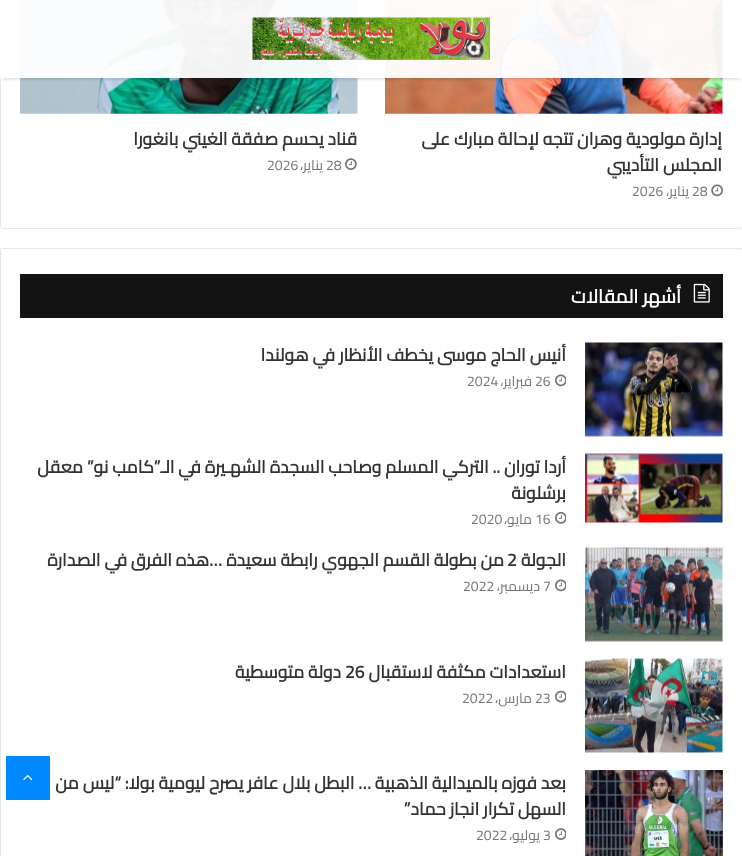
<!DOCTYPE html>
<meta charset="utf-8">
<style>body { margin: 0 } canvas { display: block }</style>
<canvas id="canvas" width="742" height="856"></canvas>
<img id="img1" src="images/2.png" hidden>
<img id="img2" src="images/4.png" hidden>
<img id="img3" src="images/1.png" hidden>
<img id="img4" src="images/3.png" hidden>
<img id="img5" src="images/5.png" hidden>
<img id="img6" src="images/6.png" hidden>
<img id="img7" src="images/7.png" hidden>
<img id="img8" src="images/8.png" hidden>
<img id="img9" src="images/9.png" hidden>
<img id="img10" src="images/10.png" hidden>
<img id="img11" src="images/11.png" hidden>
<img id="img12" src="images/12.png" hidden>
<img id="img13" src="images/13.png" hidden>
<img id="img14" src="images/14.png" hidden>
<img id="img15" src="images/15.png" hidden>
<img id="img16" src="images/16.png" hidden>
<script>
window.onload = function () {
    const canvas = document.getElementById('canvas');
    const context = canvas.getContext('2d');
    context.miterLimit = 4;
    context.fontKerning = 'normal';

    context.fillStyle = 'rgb(255, 255, 255)';
    context.fillRect(0, 0, 742, 856);
    context.beginPath();
    context.roundRect(0.5, -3.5, 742, 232, 2);
    context.strokeStyle = 'rgb(230, 230, 230)';
    context.stroke();
    context.drawImage(document.getElementById('img1'), 385, 0, 338, 114);
    context.drawImage(document.getElementById('img2'), 20, 0, 338, 114);
    context.save();
    context.beginPath();
    context.moveTo(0, 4);
    context.lineTo(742, 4);
    context.lineTo(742, 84);
    context.lineTo(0, 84);
    context.closePath();
    context.moveTo(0, 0);
    context.lineTo(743, 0);
    context.lineTo(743, 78);
    context.lineTo(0, 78);
    context.closePath();
    context.clip('evenodd');
    context.fillStyle = 'rgba(0, 0, 0, 0.1)';
    context.filter = 'blur(1px)';
    context.beginPath();
    context.rect(3, 8, 737, 72);
    context.fill();
    context.filter = 'none';
    context.restore();
    context.fillStyle = 'rgba(255, 255, 255, 0.95)';
    context.fillRect(0, 0, 741, 78);
    context.drawImage(document.getElementById('img3'), 252, 17, 238, 43);
    context.drawImage(document.getElementById('img4'), 711, 184, 12, 13);
    context.drawImage(document.getElementById('img5'), 345, 158, 12, 12);
    context.beginPath();
    context.roundRect(0.5, 248.5, 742, 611, 2);
    context.stroke();
    context.fillStyle = 'rgb(19, 19, 19)';
    context.fillRect(20, 274, 703, 44);
    context.drawImage(document.getElementById('img6'), 693, 283, 17, 20);
    context.drawImage(document.getElementById('img7'), 585, 342, 138, 95);
    context.drawImage(document.getElementById('img8'), 555, 374, 11, 13);
    context.drawImage(document.getElementById('img9'), 585, 453, 138, 70);
    context.drawImage(document.getElementById('img10'), 555, 512, 11, 12);
    context.drawImage(document.getElementById('img11'), 585, 547, 138, 95);
    context.drawImage(document.getElementById('img8'), 555, 579, 11, 13);
    context.drawImage(document.getElementById('img12'), 585, 658, 138, 95);
    context.drawImage(document.getElementById('img13'), 555, 690, 11, 13);
    context.drawImage(document.getElementById('img14'), 585, 770, 138, 86);
    context.drawImage(document.getElementById('img15'), 555, 828, 11, 12);
    context.fillStyle = 'rgb(0, 136, 255)';
    context.fillRect(6, 756, 44, 44);
    context.drawImage(document.getElementById('img16'), 23, 774, 10, 7);
    context.direction = 'rtl';
    context.font = 'bold 17.5px Cairo';
    context.fillStyle = 'rgb(51, 51, 51)';
    context.fillText('إدارة مولودية وهران تتجه لإحالة مبارك على', 722, 145);
    context.fillText('المجلس التأديبي', 722, 171);
    context.direction = 'ltr';
    context.font = '14px Cairo';
    context.fillStyle = 'rgb(118, 118, 118)';
    context.fillText('28', 692, 196);
    context.direction = 'rtl';
    context.fillText('يناير،', 689, 196);
    context.direction = 'ltr';
    context.fillText('2026', 632, 196);
    context.direction = 'rtl';
    context.font = 'bold 17.5px Cairo';
    context.fillStyle = 'rgb(51, 51, 51)';
    context.fillText('قناد يحسم صفقة الغيني بانغورا', 357, 145);
    context.direction = 'ltr';
    context.font = '14px Cairo';
    context.fillStyle = 'rgb(118, 118, 118)';
    context.fillText('28', 326, 170);
    context.direction = 'rtl';
    context.fillText('يناير،', 323, 170);
    context.direction = 'ltr';
    context.fillText('2026', 267, 170);
    context.direction = 'rtl';
    context.font = 'bold 18.75px Cairo';
    context.fillStyle = 'rgb(255, 255, 255)';
    context.fillText('أشهر المقالات', 681, 303);
    context.font = 'bold 17.5px Cairo';
    context.fillStyle = 'rgb(51, 51, 51)';
    context.fillText('أنيس الحاج موسى يخطف الأنظار في هولندا', 566, 361);
    context.direction = 'ltr';
    context.font = '14px Cairo';
    context.fillStyle = 'rgb(118, 118, 118)';
    context.fillText('26', 535, 386);
    context.direction = 'rtl';
    context.fillText('فبراير،', 532, 386);
    context.direction = 'ltr';
    context.fillText('2024', 467, 386);
    context.direction = 'rtl';
    context.font = 'bold 17.5px Cairo';
    context.fillStyle = 'rgb(51, 51, 51)';
    context.fillText('أردا توران .. التركي المسلم وصاحب السجدة الشهـيرة في الـ”كامب نو” معقل', 566, 473);
    context.fillText('برشلونة', 566, 499);
    context.direction = 'ltr';
    context.font = '14px Cairo';
    context.fillStyle = 'rgb(118, 118, 118)';
    context.fillText('16', 535, 524);
    context.direction = 'rtl';
    context.fillText('مايو،', 532, 524);
    context.direction = 'ltr';
    context.fillText('2020', 471, 524);
    context.direction = 'rtl';
    context.font = 'bold 17.5px Cairo';
    context.fillStyle = 'rgb(51, 51, 51)';
    context.fillText('الجولة', 566, 566);
    context.direction = 'ltr';
    context.fillText('2', 507, 566);
    context.direction = 'rtl';
    context.fillText('من بطولة القسم الجهوي رابطة سعيدة', 504, 566);
    context.fillText('…هذه الفرق في الصدارة', 222, 566);
    context.direction = 'ltr';
    context.font = '14px Cairo';
    context.fillStyle = 'rgb(118, 118, 118)';
    context.fillText('7', 543, 591);
    context.direction = 'rtl';
    context.fillText('ديسمبر،', 540, 591);
    context.direction = 'ltr';
    context.fillText('2022', 463, 591);
    context.direction = 'rtl';
    context.font = 'bold 17.5px Cairo';
    context.fillStyle = 'rgb(51, 51, 51)';
    context.fillText('استعدادات مكثفة لاستقبال', 566, 678);
    context.direction = 'ltr';
    context.fillText('26', 345, 678);
    context.direction = 'rtl';
    context.fillText('دولة متوسطية', 341, 678);
    context.direction = 'ltr';
    context.font = '14px Cairo';
    context.fillStyle = 'rgb(118, 118, 118)';
    context.fillText('23', 535, 703);
    context.direction = 'rtl';
    context.fillText('مارس،', 532, 703);
    context.direction = 'ltr';
    context.fillText('2022', 462, 703);
    context.direction = 'rtl';
    context.font = 'bold 17.5px Cairo';
    context.fillStyle = 'rgb(51, 51, 51)';
    context.fillText('بعد فوزه بالميدالية الذهبية … البطل بلال عافر يصرح ليومية بولا:', 566, 789);
    context.fillText('“ليس من', 121, 789);
    context.fillText('السهل تكرار انجاز حماد”', 566, 815);
    context.direction = 'ltr';
    context.font = '14px Cairo';
    context.fillStyle = 'rgb(118, 118, 118)';
    context.fillText('3', 543, 840);
    context.direction = 'rtl';
    context.fillText('يوليو،', 540, 840);
    context.direction = 'ltr';
    context.fillText('2022', 476, 840);
};
</script>
